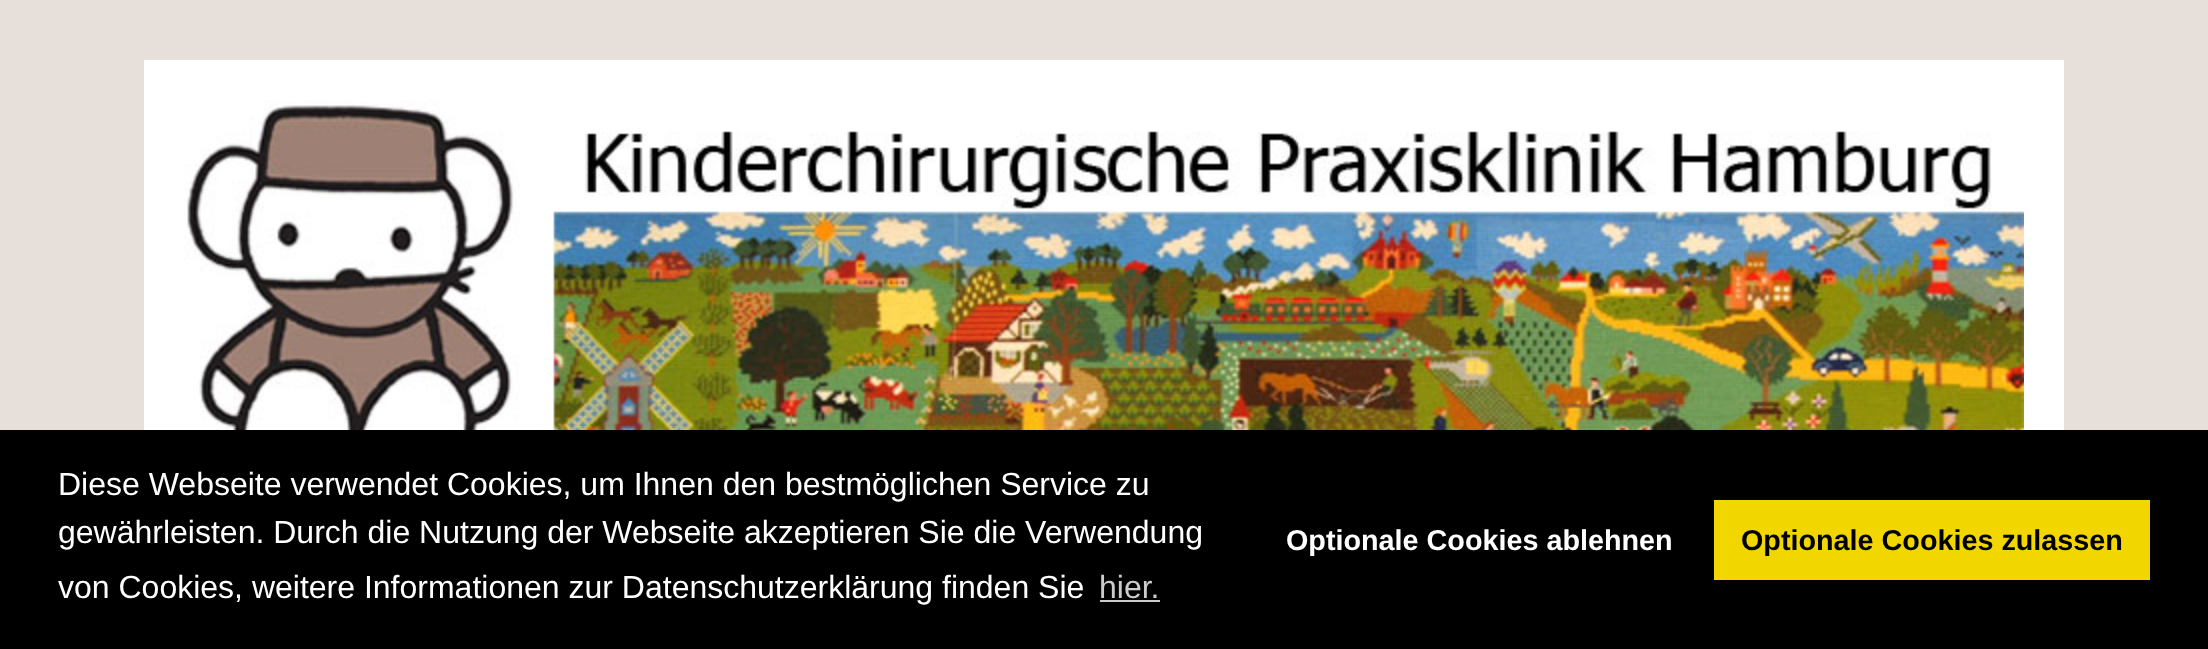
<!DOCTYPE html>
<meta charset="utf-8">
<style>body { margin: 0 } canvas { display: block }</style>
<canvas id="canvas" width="2208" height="649"></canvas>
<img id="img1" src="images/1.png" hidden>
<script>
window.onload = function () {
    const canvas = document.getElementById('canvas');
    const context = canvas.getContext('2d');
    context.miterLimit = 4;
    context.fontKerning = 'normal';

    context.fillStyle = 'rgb(231, 223, 218)';
    context.fillRect(0, 0, 2208, 649);
    context.fillStyle = 'rgb(255, 255, 255)';
    context.fillRect(144, 60, 1920, 370);
    context.drawImage(document.getElementById('img1'), 184, 100, 1840, 330);
    context.fillStyle = 'rgb(0, 0, 0)';
    context.fillRect(0, 430, 2208, 219);
    context.fillStyle = 'rgb(204, 204, 204)';
    context.fillRect(1100, 600, 60, 2);
    context.fillStyle = 'rgb(241, 214, 0)';
    context.fillRect(1714, 500, 436, 80);
    context.font = '32px Liberation Sans';
    context.fillStyle = 'rgb(255, 255, 255)';
    context.fillText('Diese Webseite verwendet Cookies, um Ihnen den bestmöglichen Service zu', 58, 495);
    context.fillText('gewährleisten. Durch die Nutzung der Webseite akzeptieren Sie die Verwendung', 58, 543);
    context.fillText('von Cookies, weitere Informationen zur Datenschutzerklärung finden Sie', 58, 598);
    context.fillStyle = 'rgb(204, 204, 204)';
    context.fillText('hier.', 1099, 598);
    context.font = 'bold 28.75px Liberation Sans';
    context.fillStyle = 'rgb(255, 255, 255)';
    context.fillText('Optionale Cookies ablehnen', 1286, 550);
    context.fillStyle = 'rgb(0, 0, 0)';
    context.fillText('Optionale Cookies zulassen', 1741, 550);
};
</script>
